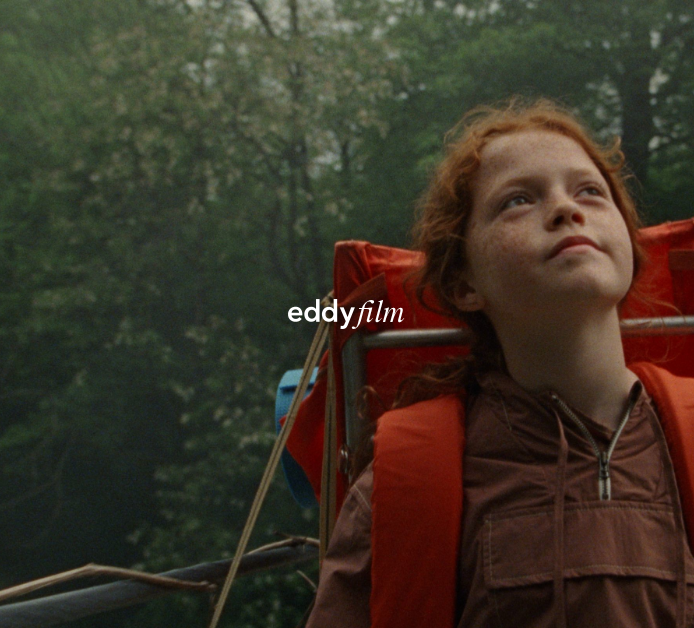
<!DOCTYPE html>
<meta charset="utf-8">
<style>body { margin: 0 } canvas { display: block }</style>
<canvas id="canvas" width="694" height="628"></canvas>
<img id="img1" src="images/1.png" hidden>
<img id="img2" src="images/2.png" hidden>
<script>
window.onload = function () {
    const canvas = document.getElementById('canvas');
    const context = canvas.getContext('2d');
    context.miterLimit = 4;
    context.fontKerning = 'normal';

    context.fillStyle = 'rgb(255, 255, 255)';
    context.fillRect(0, 0, 694, 628);
    context.drawImage(document.getElementById('img1'), 0, 0, 694, 628);
    context.font = 'italic 300 30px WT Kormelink';
    context.fillText('film', 357, 322);
    context.drawImage(document.getElementById('img2'), 288, 299, 67, 30);
};
</script>
